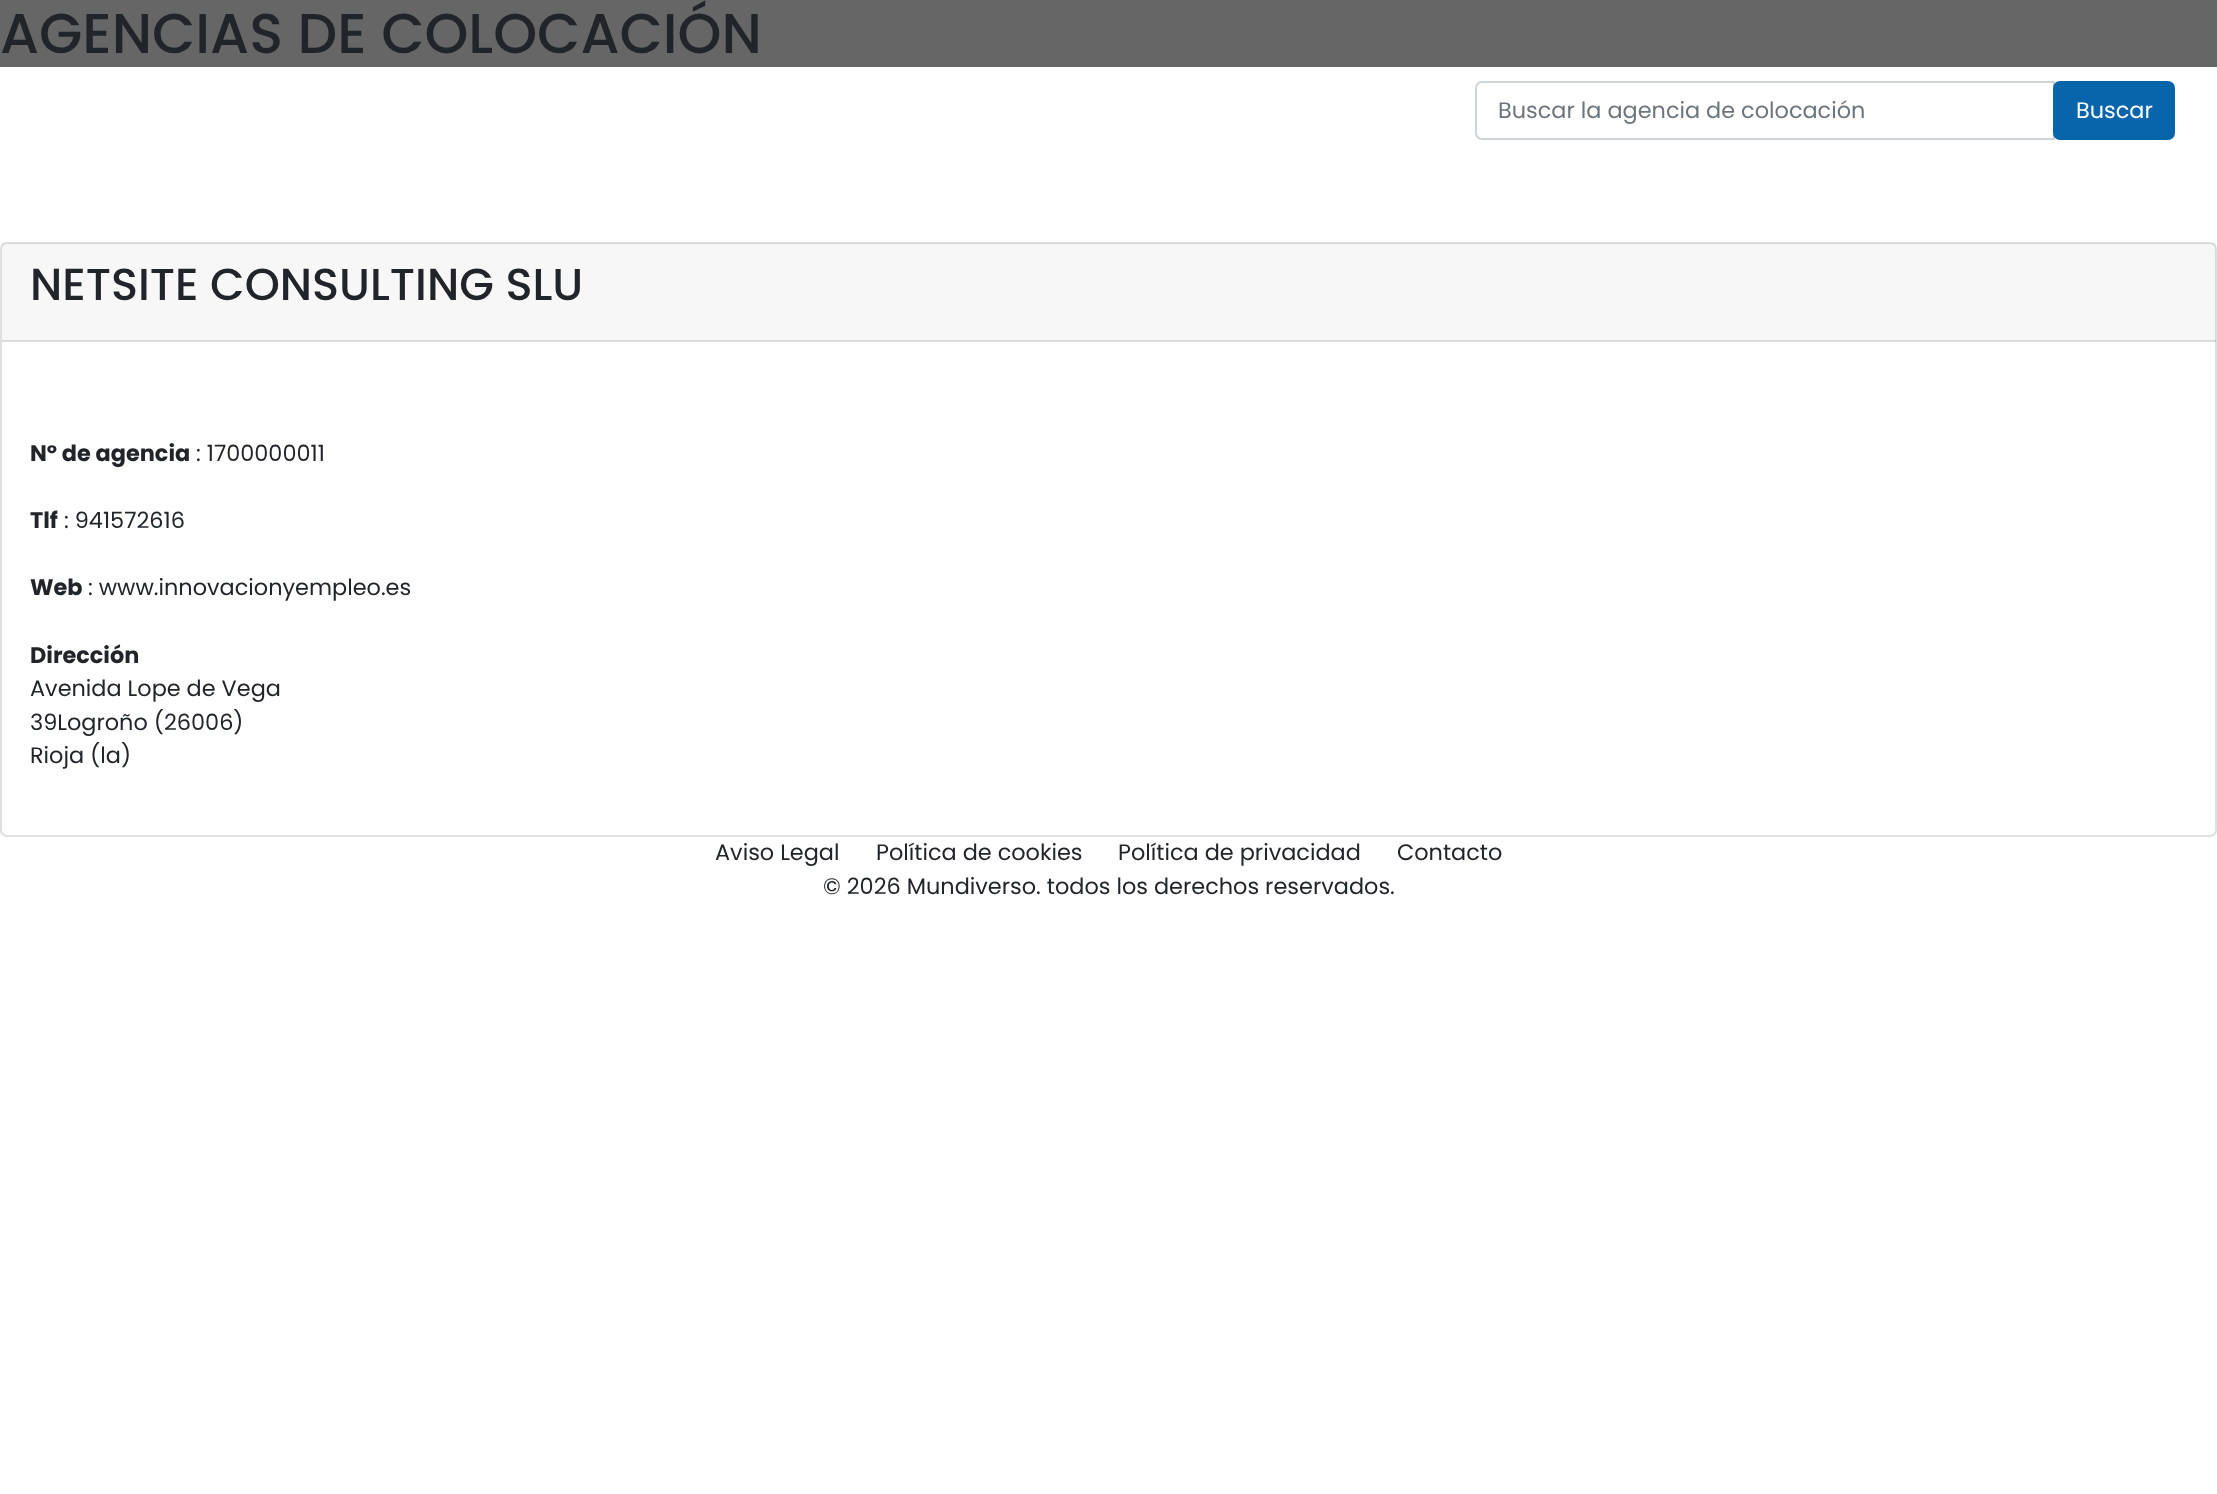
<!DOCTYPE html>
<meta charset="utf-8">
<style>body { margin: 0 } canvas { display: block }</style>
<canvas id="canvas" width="2217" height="1494"></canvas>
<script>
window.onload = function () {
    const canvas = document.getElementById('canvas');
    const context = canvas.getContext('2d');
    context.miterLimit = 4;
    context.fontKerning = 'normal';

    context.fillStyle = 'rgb(255, 255, 255)';
    context.fillRect(0, 0, 2217, 1494);
    context.fillStyle = 'rgb(102, 102, 102)';
    context.fillRect(0, 0, 2217, 67);
    context.beginPath();
    context.roundRect(1476, 82, 578, 57, [6, 0, 0, 6]);
    context.strokeStyle = 'rgb(206, 212, 218)';
    context.lineWidth = 2;
    context.stroke();
    context.fillStyle = 'rgb(8, 100, 171)';
    context.beginPath();
    context.roundRect(2054, 82, 120, 57, 6);
    context.fill();
    context.strokeStyle = 'rgb(8, 100, 171)';
    context.stroke();
    context.beginPath();
    context.roundRect(1, 243, 2215, 593, 6);
    context.strokeStyle = 'rgb(223, 223, 223)';
    context.stroke();
    context.fillStyle = 'rgba(0, 0, 0, 0.03)';
    context.fillRect(2, 243, 2214, 98);
    context.fillStyle = 'rgba(0, 0, 0, 0.12)';
    context.fillRect(2, 340, 2214, 2);
    context.font = '500 56px Poppins';
    context.fillStyle = 'rgb(33, 37, 41)';
    context.fillText('AGENCIAS DE COLOCACIÓN', 0, 53);
    context.font = '22.4px Poppins';
    context.fillStyle = 'rgb(108, 117, 125)';
    context.fillText('Buscar la agencia de colocación', 1498, 118);
    context.fillStyle = 'rgb(255, 255, 255)';
    context.fillText('Buscar', 2076, 118);
    context.font = '500 44.75px Poppins';
    context.fillStyle = 'rgb(33, 37, 41)';
    context.fillText('NETSITE CONSULTING SLU', 30, 300);
    context.font = 'bold 22.4px Poppins';
    context.fillText('Nº de agencia', 30, 461);
    context.font = '22.4px Poppins';
    context.fillText(': 1700000011', 196, 461);
    context.font = 'bold 22.4px Poppins';
    context.fillText('Tlf', 30, 528);
    context.font = '22.4px Poppins';
    context.fillText(': 941572616', 64, 528);
    context.font = 'bold 22.4px Poppins';
    context.fillText('Web', 30, 595);
    context.font = '22.4px Poppins';
    context.fillText(': www.innovacionyempleo.es', 88, 595);
    context.font = 'bold 22.4px Poppins';
    context.fillText('Dirección', 30, 663);
    context.font = '22.4px Poppins';
    context.fillText('Avenida Lope de Vega', 30, 696);
    context.fillText('39Logroño (26006)', 30, 730);
    context.fillText('Rioja (la)', 30, 763);
    context.fillText('Aviso Legal', 715, 860);
    context.fillText('Política de cookies', 876, 860);
    context.fillText('Política de privacidad', 1118, 860);
    context.fillText('Contacto', 1397, 860);
    context.fillText('© 2026 Mundiverso. todos los derechos reservados.', 823, 894);
};
</script>
